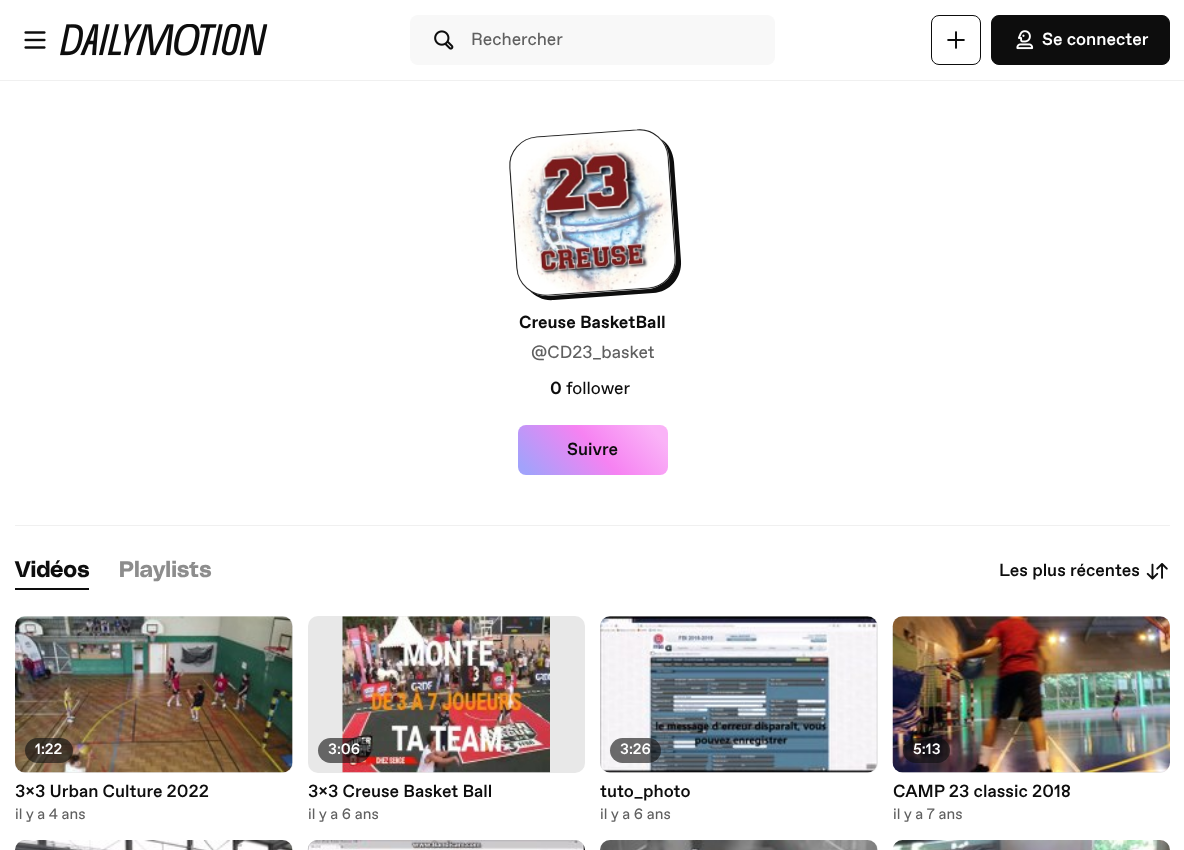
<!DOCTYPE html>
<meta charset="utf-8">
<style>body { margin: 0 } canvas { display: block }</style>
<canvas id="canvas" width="1184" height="850"></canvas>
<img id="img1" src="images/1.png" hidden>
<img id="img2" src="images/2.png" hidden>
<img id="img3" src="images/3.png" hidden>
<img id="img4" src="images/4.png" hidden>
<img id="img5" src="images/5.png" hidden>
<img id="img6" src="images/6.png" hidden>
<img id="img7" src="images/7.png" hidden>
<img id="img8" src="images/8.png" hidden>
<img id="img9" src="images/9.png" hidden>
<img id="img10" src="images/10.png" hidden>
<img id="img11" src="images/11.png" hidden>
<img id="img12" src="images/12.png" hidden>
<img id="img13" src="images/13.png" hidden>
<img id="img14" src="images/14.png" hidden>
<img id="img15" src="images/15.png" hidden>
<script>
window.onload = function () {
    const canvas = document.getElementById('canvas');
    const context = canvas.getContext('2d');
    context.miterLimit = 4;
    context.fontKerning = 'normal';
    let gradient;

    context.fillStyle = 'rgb(255, 255, 255)';
    context.fillRect(0, 0, 1184, 850);
    context.fillStyle = 'rgb(240, 240, 240)';
    context.fillRect(0, 80, 1184, 1);
    context.drawImage(document.getElementById('img1'), 24, 31, 22, 18);
    context.drawImage(document.getElementById('img2'), 60, 24, 208, 32);
    context.fillStyle = 'rgb(248, 248, 248)';
    context.beginPath();
    context.roundRect(410, 15, 365, 50, 8);
    context.fill();
    context.drawImage(document.getElementById('img3'), 434, 30, 20, 20);
    context.beginPath();
    context.roundRect(931.5, 15.5, 49, 49, 7.5);
    context.strokeStyle = 'rgb(13, 13, 13)';
    context.stroke();
    context.drawImage(document.getElementById('img4'), 947, 31, 18, 18);
    context.fillStyle = 'rgb(13, 13, 13)';
    context.beginPath();
    context.roundRect(991.5, 15.5, 178, 49, 7.5);
    context.fill();
    context.stroke();
    context.drawImage(document.getElementById('img5'), 1016, 30, 18, 20);
    context.fillStyle = 'rgb(240, 240, 240)';
    context.fillRect(15, 525, 1155, 1);
    context.fillStyle = 'rgb(13, 13, 13)';
    context.beginPath();
    context.moveTo(530, 291);
    context.bezierCurveTo(536, 297, 544, 301, 554, 300);
    context.lineTo(653, 293);
    context.bezierCurveTo(670, 292, 682, 278, 681, 261);
    context.lineTo(674, 162);
    context.bezierCurveTo(673, 152, 669, 144, 661, 139);
    context.bezierCurveTo(666, 144, 668, 150, 669, 157);
    context.lineTo(676, 257);
    context.bezierCurveTo(677, 273, 664, 288, 648, 289);
    context.lineTo(548, 296);
    context.bezierCurveTo(541, 296, 535, 294, 530, 291);
    context.closePath();
    context.fill();
    context.beginPath();
    context.moveTo(537, 137);
    context.lineTo(637, 130);
    context.bezierCurveTo(653, 128.5, 667, 141, 668, 157);
    context.lineTo(675, 257);
    context.bezierCurveTo(676.5, 273, 664, 287, 648, 288);
    context.lineTo(548, 295);
    context.bezierCurveTo(532, 296.5, 518, 284, 517, 268);
    context.lineTo(510, 168);
    context.bezierCurveTo(508.5, 152, 521, 138, 537, 137);
    context.closePath();
    context.lineWidth = 1.2;
    context.stroke();
    context.drawImage(document.getElementById('img6'), 509, 129, 167, 167);
    gradient = context.createLinearGradient(646, 402, 539, 498);
    gradient.addColorStop(0.09, 'rgb(250, 179, 247)');
    gradient.addColorStop(0.48, 'rgb(246, 130, 242)');
    gradient.addColorStop(0.94, 'rgb(162, 162, 251)');
    context.fillStyle = gradient;
    context.beginPath();
    context.roundRect(518, 425, 150, 50, 8);
    context.fill();
    context.fillStyle = 'rgb(13, 13, 13)';
    context.beginPath();
    context.moveTo(15, 588);
    context.lineTo(15, 590);
    context.lineTo(89, 590);
    context.lineTo(89, 559);
    context.lineTo(89, 588);
    context.closePath();
    context.fill();
    context.drawImage(document.getElementById('img7'), 1146, 563, 22, 17);
    context.fillStyle = 'rgb(232, 232, 232)';
    context.beginPath();
    context.roundRect(15, 616, 278, 157, 10);
    context.fill();
    context.drawImage(document.getElementById('img8'), 15, 616, 278, 157);
    context.fillStyle = 'rgba(13, 13, 13, 0.6)';
    context.beginPath();
    context.roundRect(25, 738, 48, 25, 12.5);
    context.fill();
    context.fillStyle = 'rgb(232, 232, 232)';
    context.beginPath();
    context.roundRect(308, 616, 277, 157, 10);
    context.fill();
    context.drawImage(document.getElementById('img9'), 342, 616, 208, 157);
    context.fillStyle = 'rgba(13, 13, 13, 0.6)';
    context.beginPath();
    context.roundRect(318, 738, 52, 25, 12.5);
    context.fill();
    context.fillStyle = 'rgb(232, 232, 232)';
    context.beginPath();
    context.roundRect(600, 616, 278, 157, 10);
    context.fill();
    context.drawImage(document.getElementById('img10'), 600, 616, 277, 157);
    context.fillStyle = 'rgba(13, 13, 13, 0.6)';
    context.beginPath();
    context.roundRect(610, 738, 51, 25, 12.5);
    context.fill();
    context.fillStyle = 'rgb(232, 232, 232)';
    context.beginPath();
    context.roundRect(893, 616, 277, 157, 10);
    context.fill();
    context.drawImage(document.getElementById('img11'), 892, 616, 278, 157);
    context.fillStyle = 'rgba(13, 13, 13, 0.6)';
    context.beginPath();
    context.roundRect(903, 738, 47, 25, 12.5);
    context.fill();
    context.fillStyle = 'rgb(232, 232, 232)';
    context.beginPath();
    context.roundRect(15, 840, 278, 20, 10);
    context.fill();
    context.drawImage(document.getElementById('img12'), 15, 840, 278, 10);
    context.beginPath();
    context.roundRect(308, 840, 277, 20, 10);
    context.fill();
    context.drawImage(document.getElementById('img13'), 307, 840, 278, 10);
    context.beginPath();
    context.roundRect(600, 840, 278, 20, 10);
    context.fill();
    context.drawImage(document.getElementById('img14'), 600, 840, 278, 10);
    context.beginPath();
    context.roundRect(893, 840, 277, 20, 10);
    context.fill();
    context.drawImage(document.getElementById('img15'), 893, 840, 277, 10);
    context.font = '17.5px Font';
    context.fillStyle = 'rgb(96, 96, 96)';
    context.fillText('Rechercher', 471, 45);
    context.font = '500 17.5px Font';
    context.fillStyle = 'rgb(255, 255, 255)';
    context.fillText('Se connecter', 1042, 45);
    context.font = 'bold 17.5px Font';
    context.fillStyle = 'rgb(13, 13, 13)';
    context.fillText('Creuse BasketBall', 519, 328);
    context.font = '17.5px Font';
    context.fillStyle = 'rgb(96, 96, 96)';
    context.fillText('@CD23_basket', 531, 358);
    context.font = 'bold 17.5px Font';
    context.fillStyle = 'rgb(13, 13, 13)';
    context.fillText('0', 550, 394);
    context.font = '17.5px Font';
    context.fillText('follower', 566, 394);
    context.font = '500 17.5px Font';
    context.fillText('Suivre', 567, 455);
    context.letterSpacing = '0.25px';
    context.font = 'bold 22.5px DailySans';
    context.fillText('Vidéos', 15, 577);
    context.fillStyle = 'rgb(141, 141, 141)';
    context.fillText('Playlists', 119, 577);
    context.letterSpacing = '0px';
    context.font = '500 17.5px Font';
    context.fillStyle = 'rgb(13, 13, 13)';
    context.fillText('Les plus récentes', 999, 576);
    context.font = '500 15px Font';
    context.fillStyle = 'rgb(255, 255, 255)';
    context.fillText('1:22', 35, 754);
    context.font = '500 17.5px Font';
    context.fillStyle = 'rgb(13, 13, 13)';
    context.fillText('3x3 Urban Culture 2022', 15, 797);
    context.font = '15px Font';
    context.fillStyle = 'rgb(96, 96, 96)';
    context.fillText('il y a 4 ans', 15, 819);
    context.font = '500 15px Font';
    context.fillStyle = 'rgb(255, 255, 255)';
    context.fillText('3:06', 328, 754);
    context.font = '500 17.5px Font';
    context.fillStyle = 'rgb(13, 13, 13)';
    context.fillText('3x3 Creuse Basket Ball', 308, 797);
    context.font = '15px Font';
    context.fillStyle = 'rgb(96, 96, 96)';
    context.fillText('il y a 6 ans', 308, 819);
    context.font = '500 15px Font';
    context.fillStyle = 'rgb(255, 255, 255)';
    context.fillText('3:26', 620, 754);
    context.font = '500 17.5px Font';
    context.fillStyle = 'rgb(13, 13, 13)';
    context.fillText('tuto_photo', 600, 797);
    context.font = '15px Font';
    context.fillStyle = 'rgb(96, 96, 96)';
    context.fillText('il y a 6 ans', 600, 819);
    context.font = '500 15px Font';
    context.fillStyle = 'rgb(255, 255, 255)';
    context.fillText('5:13', 913, 754);
    context.font = '500 17.5px Font';
    context.fillStyle = 'rgb(13, 13, 13)';
    context.fillText('CAMP 23 classic 2018', 893, 797);
    context.font = '15px Font';
    context.fillStyle = 'rgb(96, 96, 96)';
    context.fillText('il y a 7 ans', 893, 819);
};
</script>
